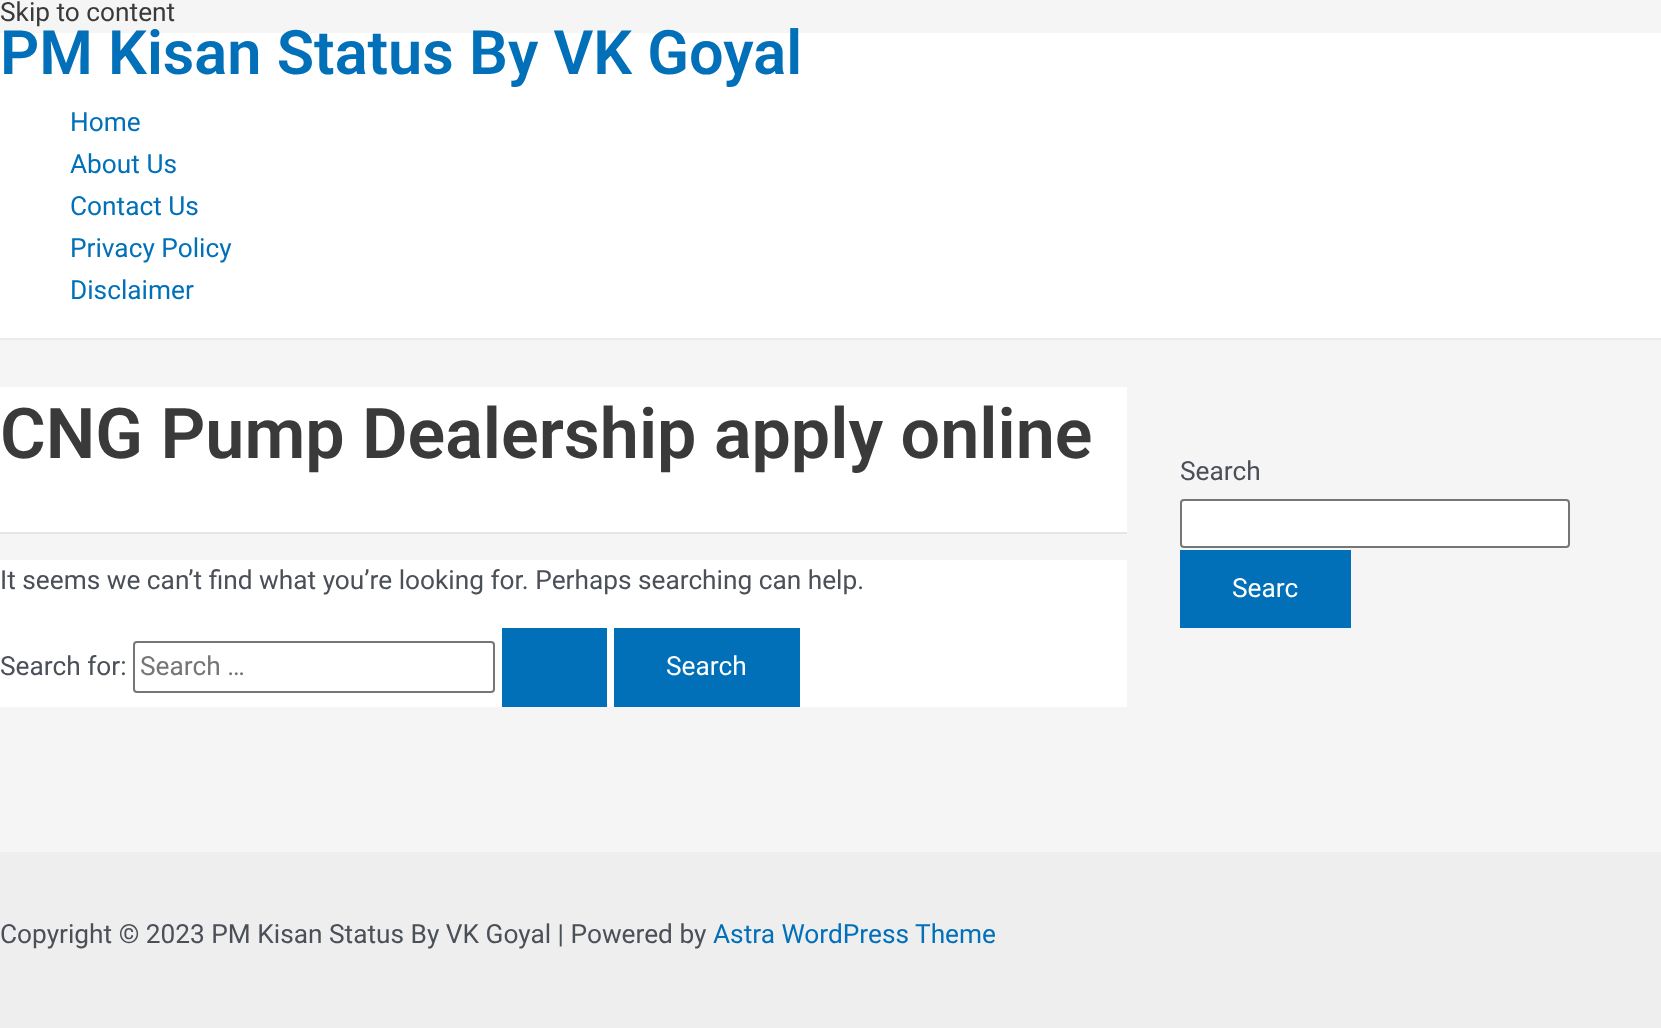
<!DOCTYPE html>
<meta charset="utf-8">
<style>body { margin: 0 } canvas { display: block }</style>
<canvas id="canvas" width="1661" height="1028"></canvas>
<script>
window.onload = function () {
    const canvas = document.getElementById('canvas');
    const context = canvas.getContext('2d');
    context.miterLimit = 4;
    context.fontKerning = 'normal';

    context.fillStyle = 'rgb(245, 245, 245)';
    context.fillRect(0, 0, 1661, 1028);
    context.fillStyle = 'rgb(255, 255, 255)';
    context.fillRect(0, 33, 1661, 305);
    context.fillStyle = 'rgb(234, 234, 234)';
    context.fillRect(0, 338, 1661, 2);
    context.fillStyle = 'rgb(255, 255, 255)';
    context.fillRect(0, 387, 1127, 145);
    context.fillStyle = 'rgb(229, 229, 229)';
    context.fillRect(0, 532, 1127, 2);
    context.fillStyle = 'rgb(255, 255, 255)';
    context.fillRect(0, 560, 1127, 147);
    context.beginPath();
    context.roundRect(134, 642, 360, 50, 3);
    context.strokeStyle = 'rgb(118, 118, 118)';
    context.lineWidth = 2;
    context.stroke();
    context.fillStyle = 'rgb(1, 112, 185)';
    context.fillRect(502, 628, 105, 79);
    context.fillRect(614, 628, 186, 79);
    context.fillStyle = 'rgb(255, 255, 255)';
    context.beginPath();
    context.roundRect(1181, 500, 388, 47, 3);
    context.fill();
    context.stroke();
    context.fillStyle = 'rgb(1, 112, 185)';
    context.fillRect(1180, 550, 171, 78);
    context.fillStyle = 'rgb(238, 238, 238)';
    context.fillRect(0, 852, 1661, 176);
    context.font = '26.25px Roboto';
    context.fillStyle = 'rgb(58, 58, 58)';
    context.fillText('Skip to content', 0, 21);
    context.font = '600 61.25px Roboto';
    context.fillStyle = 'rgb(1, 112, 185)';
    context.fillText('PM Kisan Status By VK Goyal', 0, 74);
    context.font = '26.25px Roboto';
    context.fillText('Home', 70, 131);
    context.fillText('About Us', 70, 173);
    context.fillText('Contact Us', 70, 215);
    context.fillText('Privacy Policy', 70, 257);
    context.fillText('Disclaimer', 70, 299);
    context.font = '600 70px Roboto';
    context.fillStyle = 'rgb(58, 58, 58)';
    context.fillText('CNG Pump Dealership apply online', 0, 458);
    context.font = '26.25px Roboto';
    context.fillStyle = 'rgb(75, 79, 88)';
    context.fillText('It seems we can’t find what you’re looking for. Perhaps searching can help.', 0, 589);
    context.fillText('Search for:', 0, 675);
    context.fillStyle = 'rgb(117, 117, 117)';
    context.fillText('Search …', 140, 675);
    context.fillStyle = 'rgb(255, 255, 255)';
    context.fillText('Search', 666, 675);
    context.fillStyle = 'rgb(75, 79, 88)';
    context.fillText('Search', 1180, 480);
    context.fillStyle = 'rgb(255, 255, 255)';
    context.fillText('Searc', 1232, 597);
    context.fillStyle = 'rgb(75, 79, 88)';
    context.fillText('Copyright © 2023 PM Kisan Status By VK Goyal | Powered by', 0, 943);
    context.fillStyle = 'rgb(1, 112, 185)';
    context.fillText('Astra WordPress Theme', 713, 943);
};
</script>
